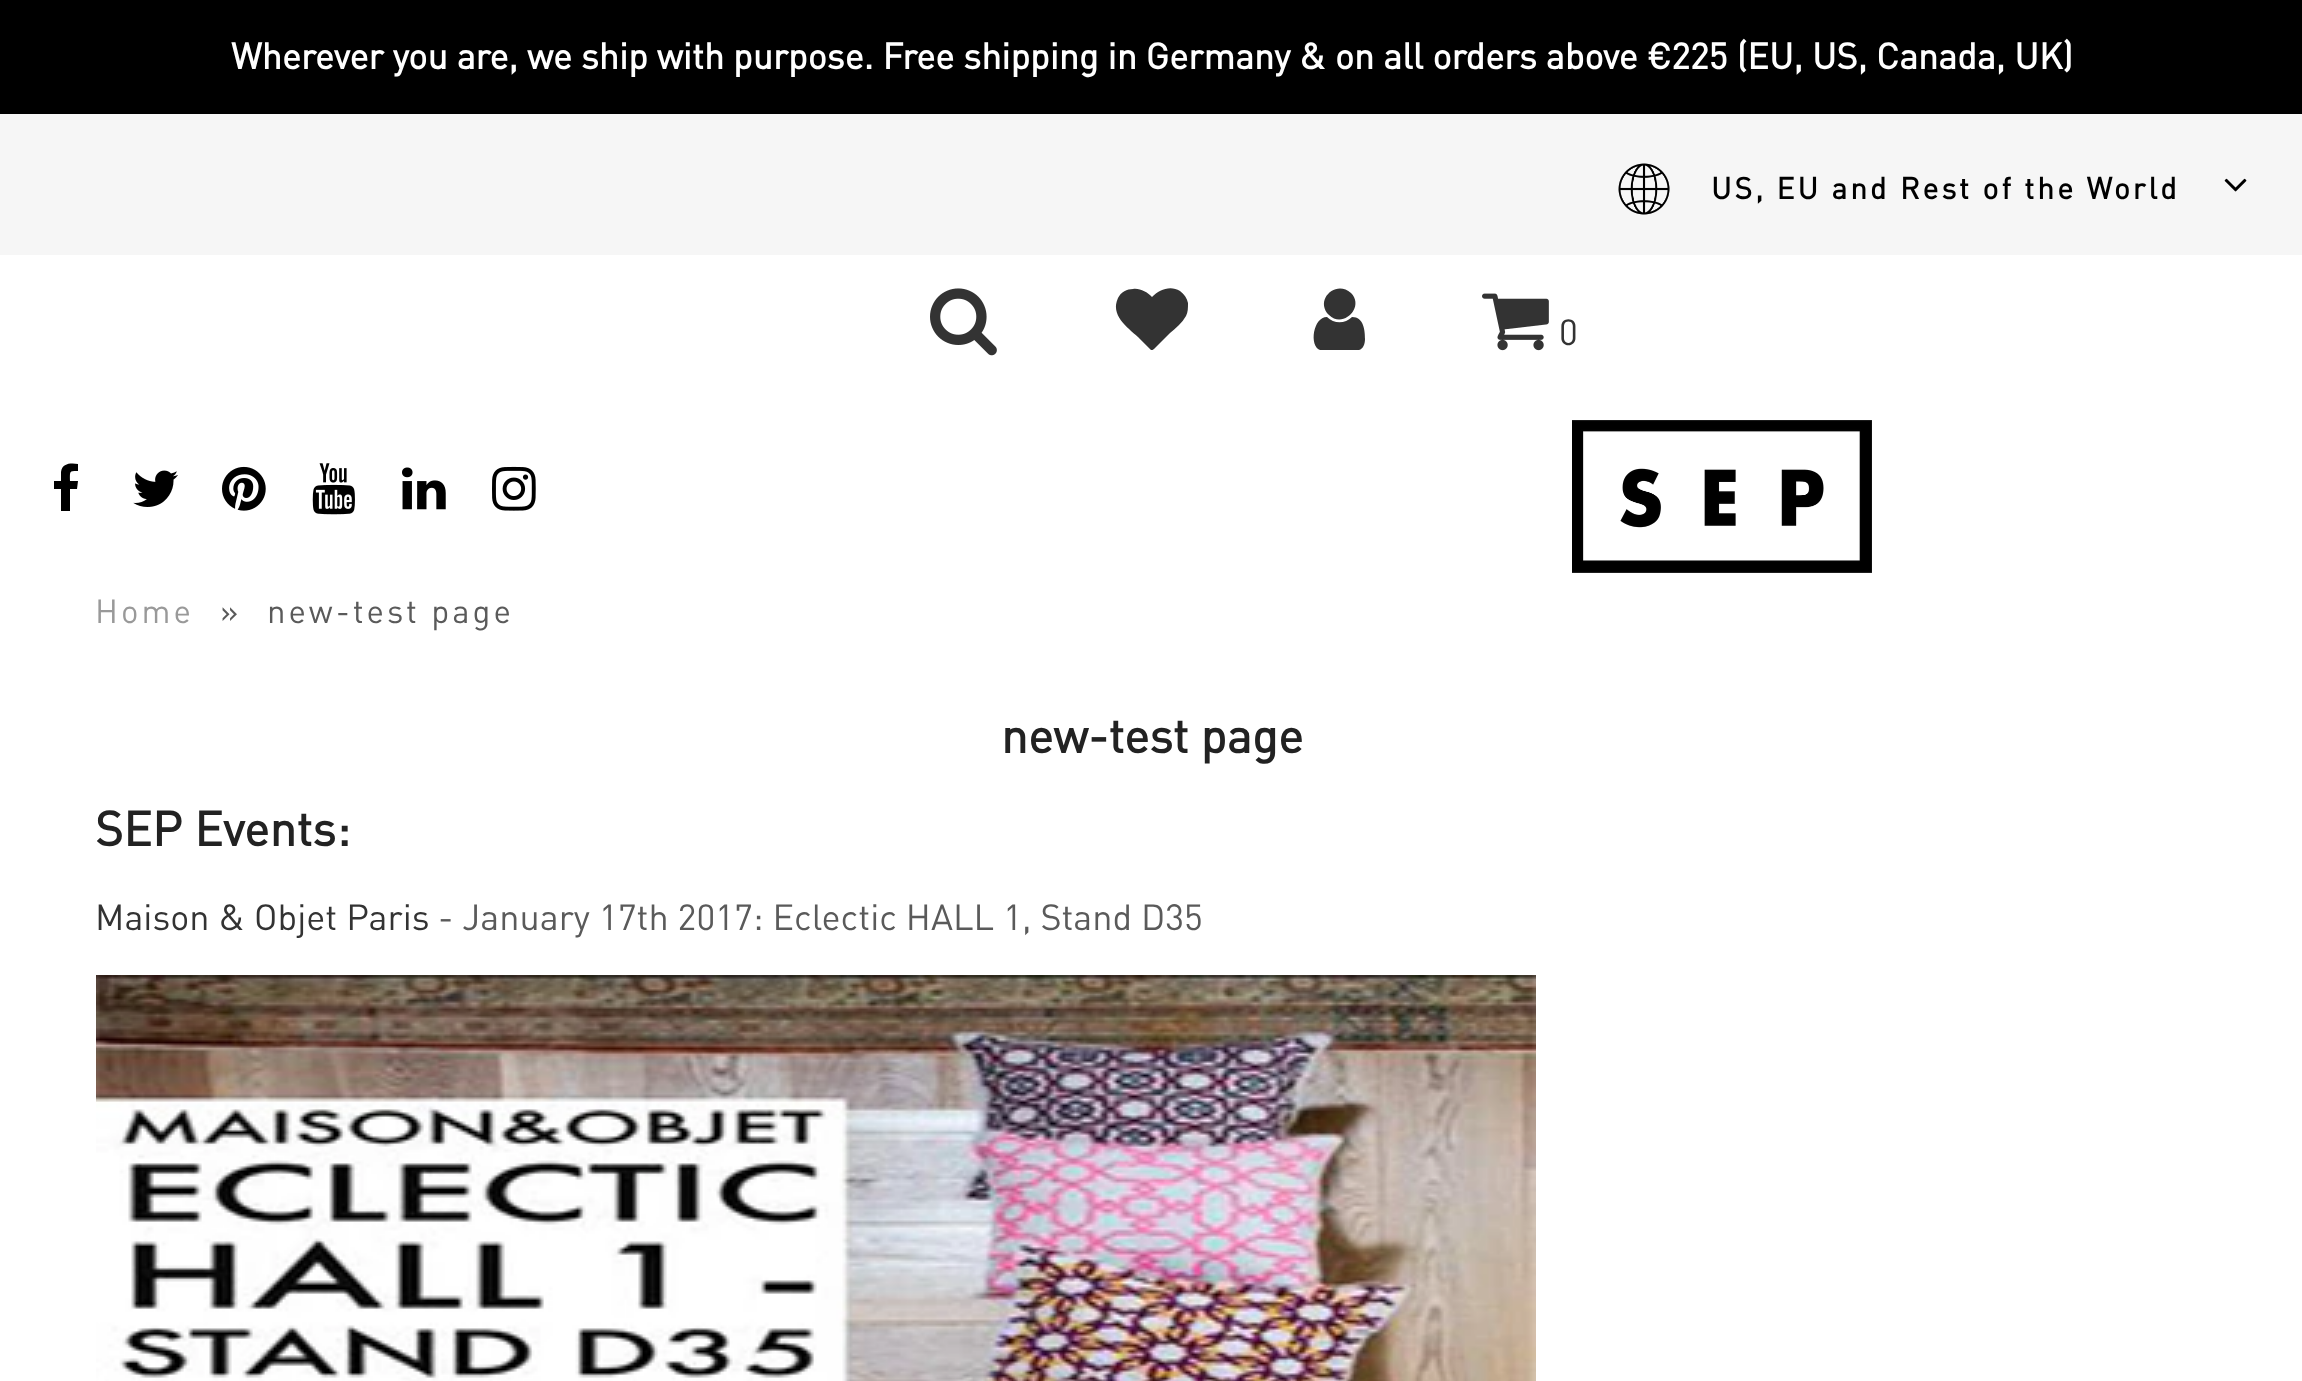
<!DOCTYPE html>
<meta charset="utf-8">
<style>body { margin: 0 } canvas { display: block }</style>
<canvas id="canvas" width="2302" height="1381"></canvas>
<img id="img1" src="images/1.png" hidden>
<img id="img2" src="images/2.png" hidden>
<img id="img3" src="images/3.png" hidden>
<img id="img4" src="images/4.png" hidden>
<img id="img5" src="images/5.png" hidden>
<img id="img6" src="images/6.png" hidden>
<img id="img7" src="images/7.png" hidden>
<img id="img8" src="images/8.png" hidden>
<img id="img9" src="images/9.png" hidden>
<img id="img10" src="images/10.png" hidden>
<img id="img11" src="images/11.png" hidden>
<script>
window.onload = function () {
    const canvas = document.getElementById('canvas');
    const context = canvas.getContext('2d');
    context.miterLimit = 4;
    context.fontKerning = 'normal';

    context.fillStyle = 'rgb(255, 255, 255)';
    context.fillRect(0, 0, 2302, 1381);
    context.fillStyle = 'rgb(0, 0, 0)';
    context.fillRect(0, 0, 2302, 114);
    context.fillStyle = 'rgb(246, 246, 246)';
    context.fillRect(0, 114, 2302, 141);
    context.drawImage(document.getElementById('img1'), 1618, 163, 52, 52);
    context.drawImage(document.getElementById('img2'), 2224, 178, 23, 14);
    context.drawImage(document.getElementById('img3'), 930, 288, 67, 68);
    context.fillStyle = 'rgb(51, 51, 51)';
    context.beginPath();
    context.moveTo(1154, 349);
    context.bezierCurveTo(1153, 350, 1152, 350, 1151, 350);
    context.lineTo(1138, 337);
    context.bezierCurveTo(1127, 327, 1110, 315, 1118, 298);
    context.bezierCurveTo(1121, 292, 1127, 289, 1133, 289);
    context.bezierCurveTo(1140, 288, 1147, 292, 1152, 297);
    context.bezierCurveTo(1159, 290, 1170, 285, 1180, 291);
    context.bezierCurveTo(1184, 294, 1187, 298, 1188, 303);
    context.bezierCurveTo(1188, 308, 1188, 312, 1186, 316);
    context.bezierCurveTo(1182, 323, 1176, 328, 1170, 333);
    context.closePath();
    context.fill();
    context.beginPath();
    context.moveTo(1365, 339);
    context.bezierCurveTo(1365, 344, 1363, 349, 1359, 350);
    context.lineTo(1328, 350);
    context.lineTo(1320, 350);
    context.bezierCurveTo(1309, 346, 1313, 317, 1327, 317);
    context.bezierCurveTo(1334, 324, 1345, 324, 1352, 317);
    context.bezierCurveTo(1364, 317, 1365, 331, 1365, 339);
    context.closePath();
    context.moveTo(1351, 293);
    context.bezierCurveTo(1365, 307, 1343, 329, 1329, 315);
    context.bezierCurveTo(1314, 300, 1336, 279, 1351, 293);
    context.closePath();
    context.fill();
    context.drawImage(document.getElementById('img4'), 1482, 293, 67, 58);
    context.fillStyle = 'rgb(0, 0, 0)';
    context.beginPath();
    context.moveTo(78, 464);
    context.lineTo(78, 471);
    context.bezierCurveTo(69, 471, 70, 471, 70, 481);
    context.lineTo(78, 481);
    context.lineTo(77, 489);
    context.lineTo(70, 489);
    context.lineTo(70, 511);
    context.lineTo(61, 511);
    context.lineTo(61, 489);
    context.lineTo(54, 489);
    context.lineTo(54, 481);
    context.lineTo(61, 481);
    context.lineTo(61, 472);
    context.bezierCurveTo(62, 463, 71, 463, 78, 464);
    context.closePath();
    context.fill();
    context.drawImage(document.getElementById('img5'), 133, 470, 45, 37);
    context.drawImage(document.getElementById('img6'), 222, 466, 44, 45);
    context.drawImage(document.getElementById('img7'), 312, 463, 43, 52);
    context.drawImage(document.getElementById('img8'), 402, 467, 44, 43);
    context.drawImage(document.getElementById('img9'), 492, 466, 44, 45);
    context.drawImage(document.getElementById('img10'), 1572, 420, 300, 153);
    context.drawImage(document.getElementById('img11'), 96, 975, 1440, 406);
    context.font = 'bold 36px DIN';
    context.fillStyle = 'rgb(255, 255, 255)';
    context.fillText('Wherever you are, we ship with purpose. Free shipping in Germany & on all orders above €225 (EU, US, Canada, UK)', 231, 69);
    context.letterSpacing = '3px';
    context.font = 'bold 30px DIN';
    context.fillStyle = 'rgb(0, 0, 0)';
    context.fillText('US, EU and Rest of the World', 1711, 199);
    context.letterSpacing = '0px';
    context.font = '36px DIN';
    context.fillStyle = 'rgb(51, 51, 51)';
    context.fillText('0', 1559, 345);
    context.letterSpacing = '3px';
    context.font = '33px DIN';
    context.fillStyle = 'rgb(153, 153, 153)';
    context.fillText('Home', 95, 623);
    context.fillStyle = 'rgb(90, 90, 90)';
    context.fillText('»', 220, 623);
    context.fillText('new-test page', 267, 623);
    context.letterSpacing = '0px';
    context.font = 'bold 48px DIN';
    context.fillStyle = 'rgb(34, 34, 34)';
    context.fillText('new-test page', 1001, 753);
    context.fillText('SEP Events:', 95, 846);
    context.font = '36px DIN';
    context.fillStyle = 'rgb(51, 51, 51)';
    context.fillText('Maison & Objet Paris', 95, 930);
    context.fillStyle = 'rgb(90, 90, 90)';
    context.fillText('- January 17th 2017: Eclectic HALL 1, Stand D35', 438, 930);
};
</script>
